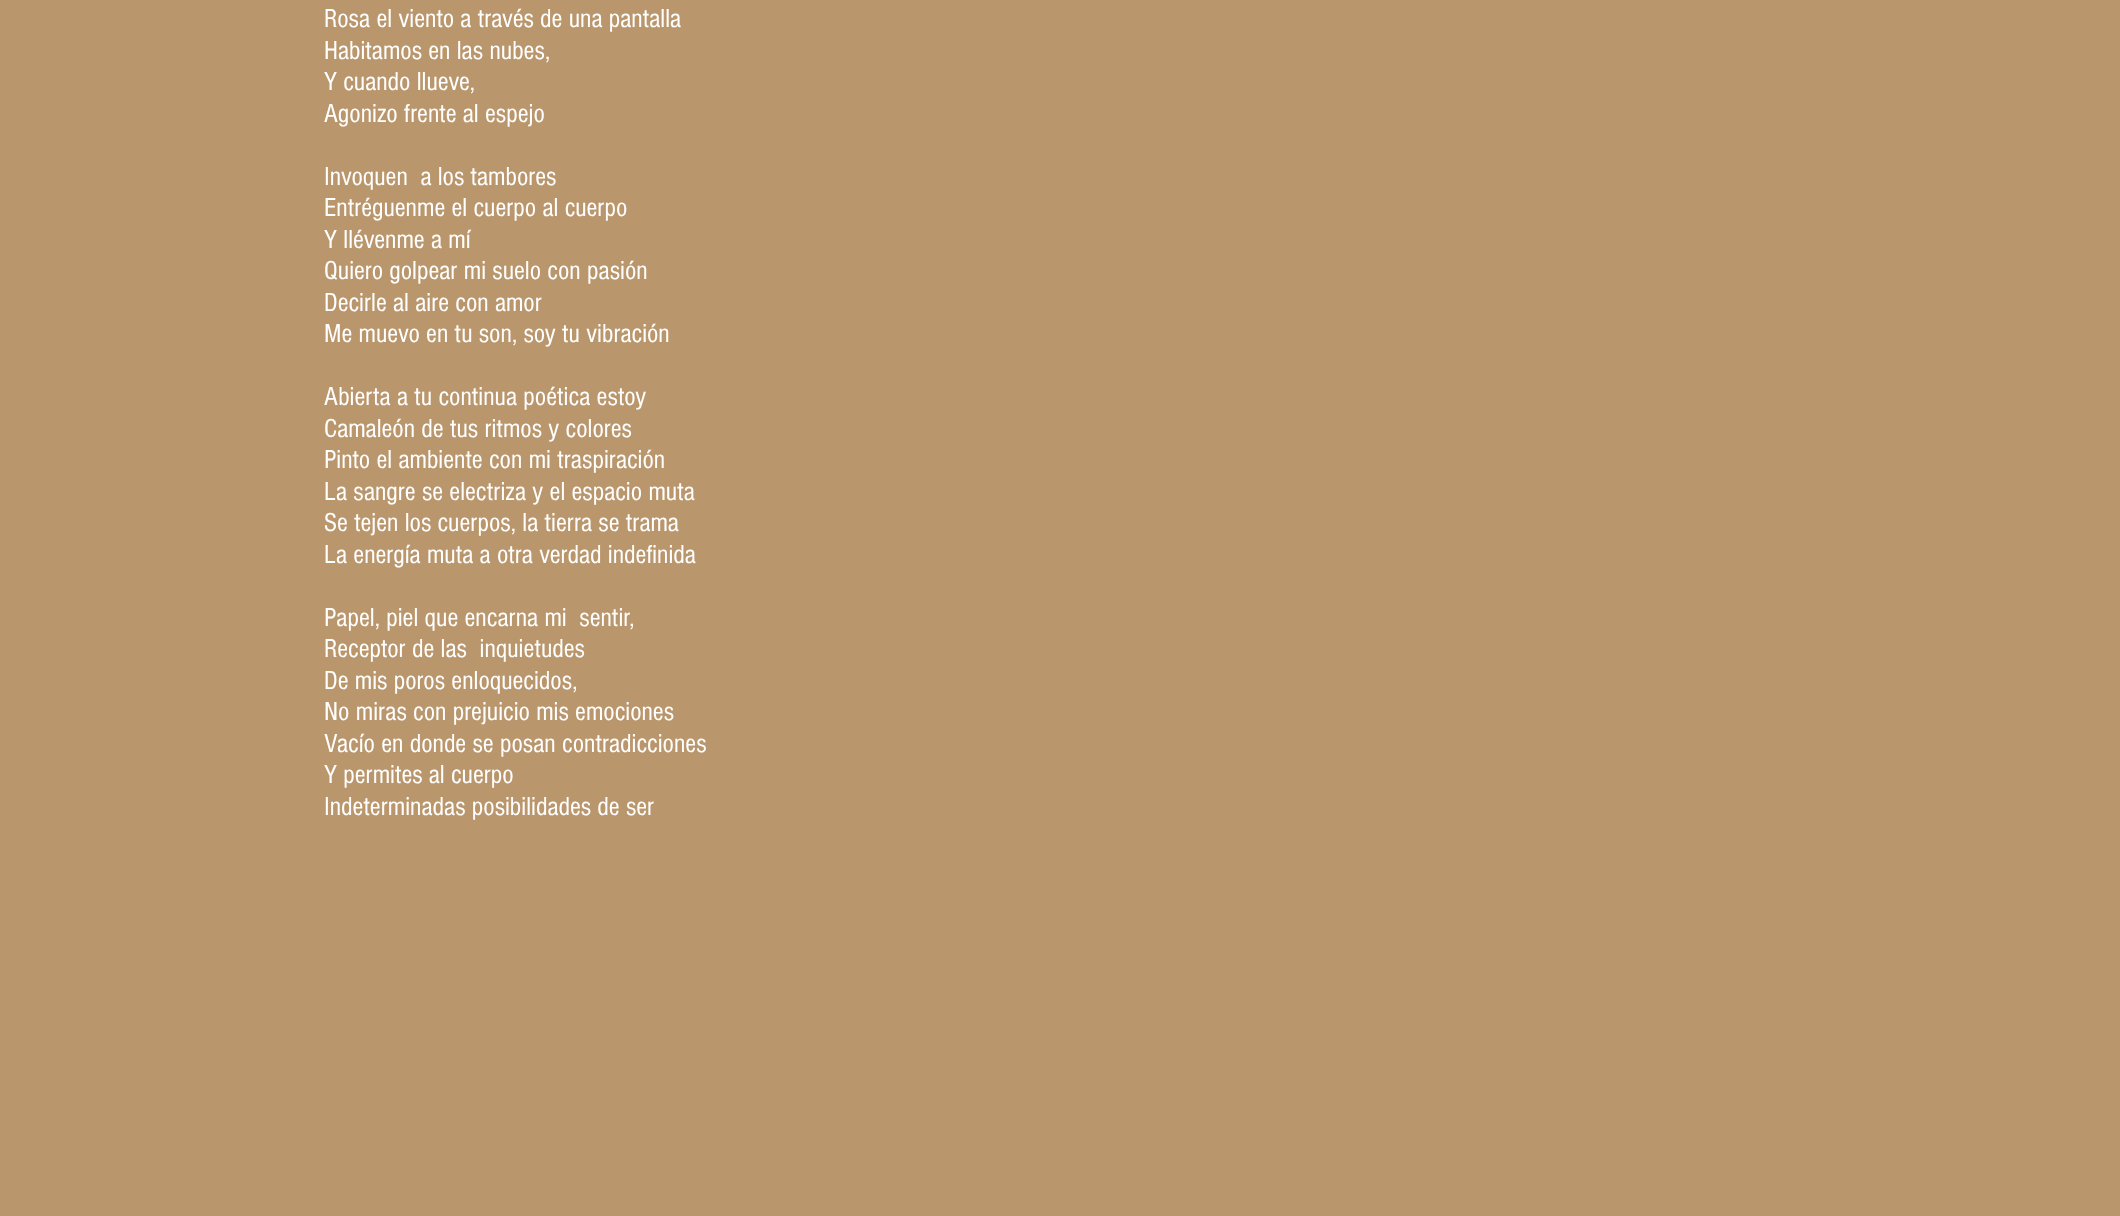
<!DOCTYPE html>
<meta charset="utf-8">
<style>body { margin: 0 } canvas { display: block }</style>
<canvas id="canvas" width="2120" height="1216"></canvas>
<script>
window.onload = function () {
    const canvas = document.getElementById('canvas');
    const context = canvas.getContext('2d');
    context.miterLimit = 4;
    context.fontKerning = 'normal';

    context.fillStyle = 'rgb(186, 150, 108)';
    context.fillRect(0, 0, 2120, 1216);
    context.font = '27px "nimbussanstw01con"';
    context.fillStyle = 'rgb(255, 255, 255)';
    context.fillText('Rosa el viento a través de una pantalla', 324, 27);
    context.fillText('Habitamos en las nubes,', 324, 59);
    context.fillText('Y cuando llueve,', 324, 90);
    context.fillText('Agonizo frente al espejo', 324, 122);
    context.fillText('Invoquen  a los tambores', 324, 185);
    context.fillText('Entréguenme el cuerpo al cuerpo', 324, 216);
    context.fillText('Y llévenme a mí', 324, 248);
    context.fillText('Quiero golpear mi suelo con pasión', 324, 279);
    context.fillText('Decirle al aire con amor', 324, 311);
    context.fillText('Me muevo en tu son, soy tu vibración', 324, 342);
    context.fillText('Abierta a tu continua poética estoy', 324, 405);
    context.fillText('Camaleón de tus ritmos y colores', 324, 437);
    context.fillText('Pinto el ambiente con mi traspiración', 324, 468);
    context.fillText('La sangre se electriza y el espacio muta', 324, 500);
    context.fillText('Se tejen los cuerpos, la tierra se trama', 324, 531);
    context.fillText('La energía muta a otra verdad indefinida', 324, 563);
    context.fillText('Papel, piel que encarna mi  sentir,', 324, 626);
    context.fillText('Receptor de las  inquietudes', 324, 657);
    context.fillText('De mis poros enloquecidos,', 324, 689);
    context.fillText('No miras con prejuicio mis emociones', 324, 720);
    context.fillText('Vacío en donde se posan contradicciones', 324, 752);
    context.fillText('Y permites al cuerpo', 324, 783);
    context.fillText('Indeterminadas posibilidades de ser', 324, 815);
};
</script>
